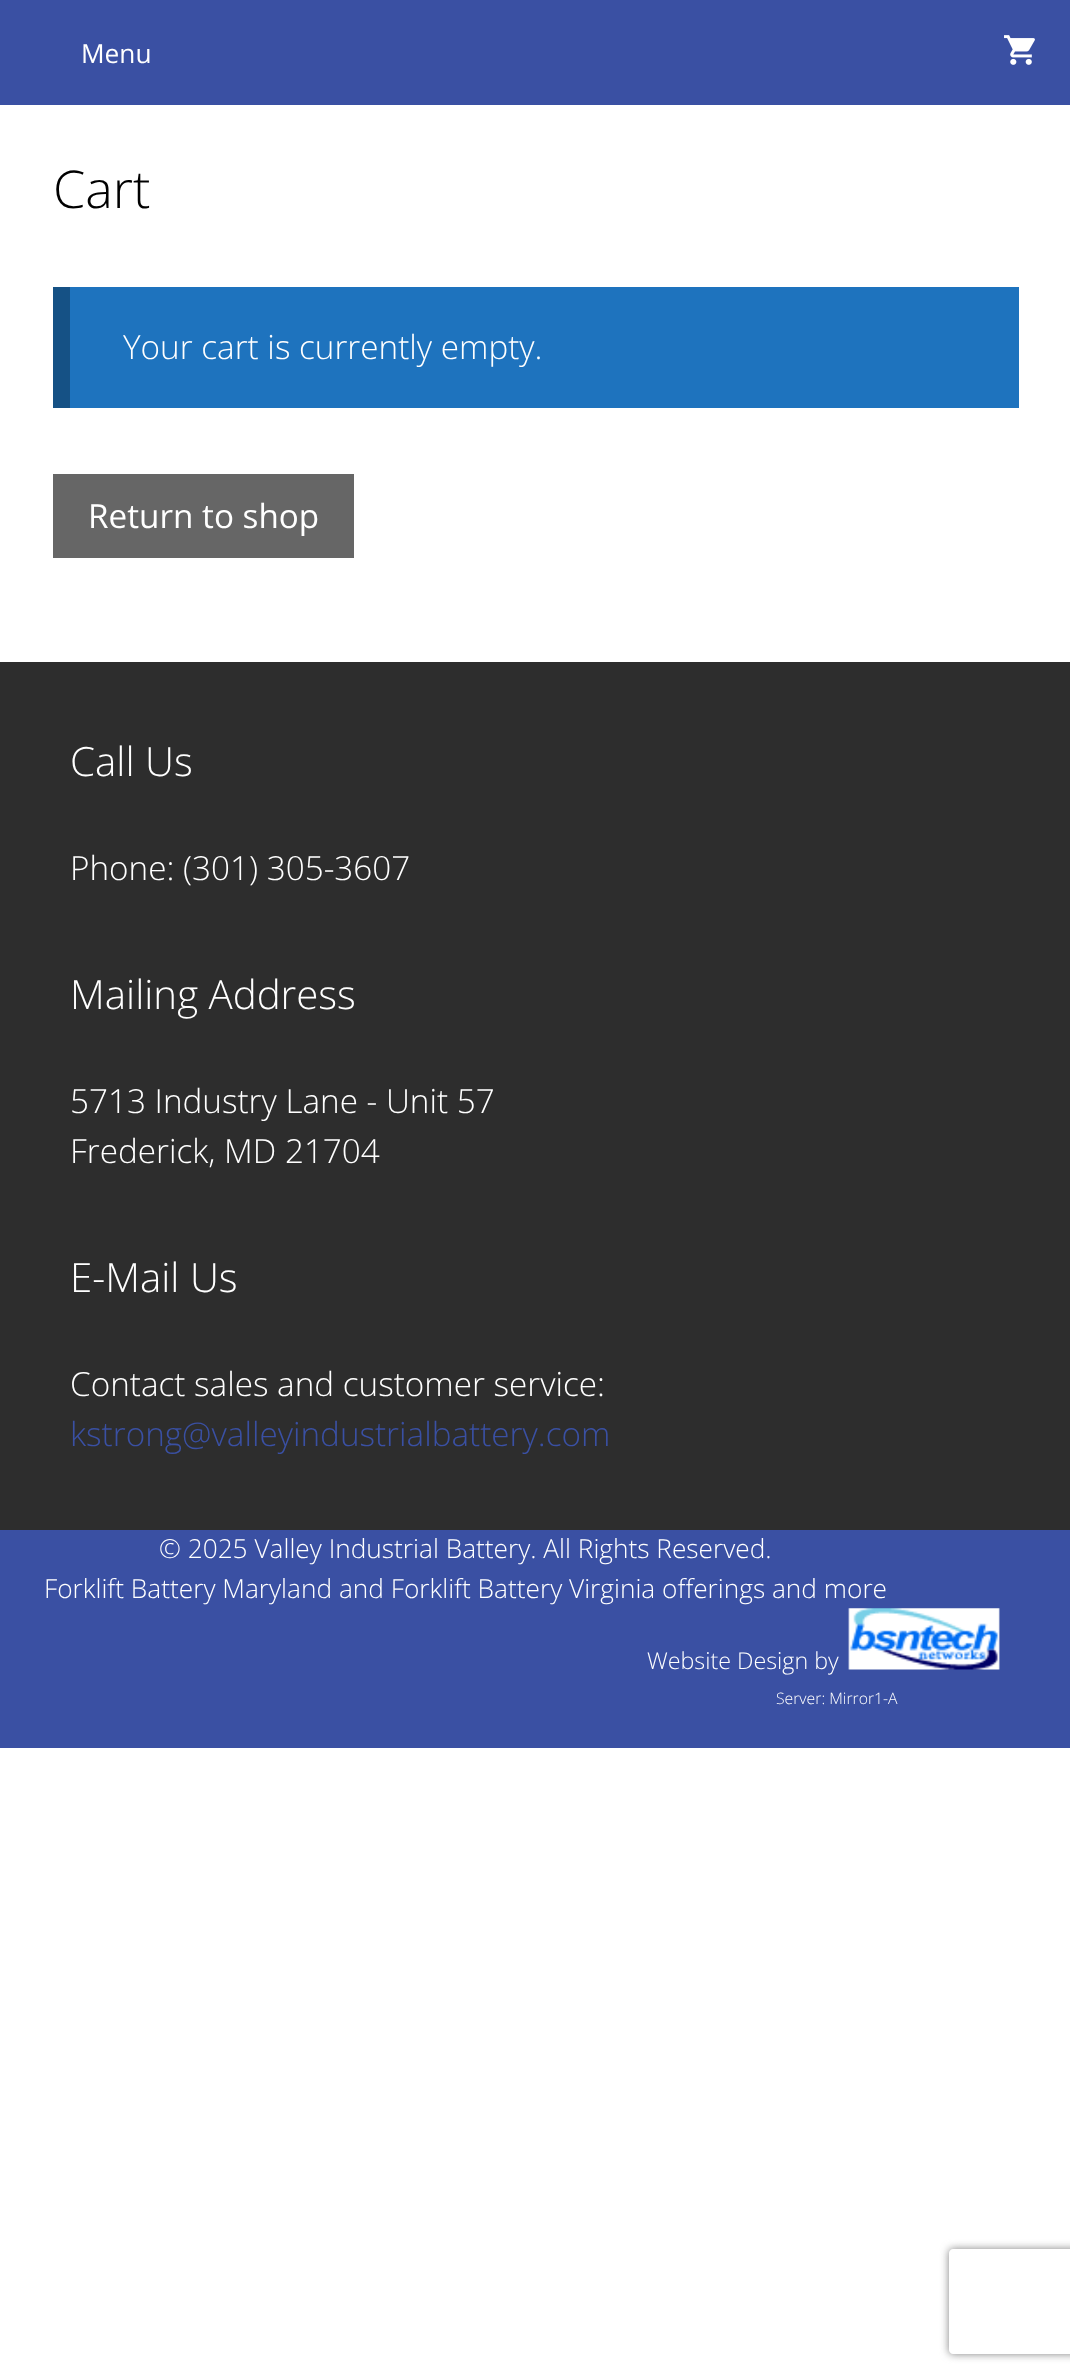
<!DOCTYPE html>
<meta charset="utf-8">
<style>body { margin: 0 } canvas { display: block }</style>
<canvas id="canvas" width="1070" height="2378"></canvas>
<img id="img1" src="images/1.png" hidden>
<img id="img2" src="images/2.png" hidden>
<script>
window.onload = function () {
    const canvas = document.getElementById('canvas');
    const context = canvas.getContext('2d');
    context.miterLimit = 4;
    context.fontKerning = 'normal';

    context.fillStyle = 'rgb(255, 255, 255)';
    context.fillRect(0, 0, 1070, 2378);
    context.fillStyle = 'rgb(58, 80, 163)';
    context.fillRect(0, 0, 1070, 105);
    context.drawImage(document.getElementById('img1'), 1004, 35, 31, 30);
    context.fillStyle = 'rgb(30, 115, 190)';
    context.fillRect(70, 287, 949, 121);
    context.fillStyle = 'rgb(21, 81, 133)';
    context.fillRect(53, 287, 17, 121);
    context.fillStyle = 'rgb(102, 102, 102)';
    context.fillRect(53, 474, 301, 84);
    context.fillStyle = 'rgb(45, 45, 45)';
    context.fillRect(0, 662, 1070, 868);
    context.fillStyle = 'rgb(58, 80, 163)';
    context.fillRect(0, 1530, 1070, 218);
    context.drawImage(document.getElementById('img2'), 848, 1608, 152, 62);
    context.save();
    context.beginPath();
    context.moveTo(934, 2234);
    context.lineTo(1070, 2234);
    context.lineTo(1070, 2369);
    context.lineTo(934, 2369);
    context.closePath();
    context.moveTo(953, 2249);
    context.lineTo(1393, 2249);
    context.bezierCurveTo(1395, 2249, 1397, 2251, 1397, 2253);
    context.lineTo(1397, 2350);
    context.bezierCurveTo(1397, 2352, 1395, 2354, 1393, 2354);
    context.lineTo(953, 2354);
    context.bezierCurveTo(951, 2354, 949, 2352, 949, 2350);
    context.lineTo(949, 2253);
    context.bezierCurveTo(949, 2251, 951, 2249, 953, 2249);
    context.closePath();
    context.clip('evenodd');
    context.fillStyle = 'rgb(128, 128, 128)';
    context.filter = 'blur(4.5px)';
    context.beginPath();
    context.roundRect(949, 2249, 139, 105, 4);
    context.fill();
    context.filter = 'none';
    context.restore();
    context.font = '26.25px Open Sans';
    context.fillStyle = 'rgb(255, 255, 255)';
    context.fillText('Menu', 81, 63);
    context.font = '300 52px Open Sans';
    context.fillStyle = 'rgb(0, 0, 0)';
    context.fillText('Cart', 53, 208);
    context.font = '300 33.25px Open Sans';
    context.fillStyle = 'rgb(255, 255, 255)';
    context.fillText('Your cart is currently empty.', 123, 359);
    context.font = '33.25px Open Sans';
    context.fillText('Return to shop', 88, 528);
    context.font = '300 40.25px Open Sans';
    context.fillText('Call Us', 70, 776);
    context.font = '300 33.25px Open Sans';
    context.fillText('Phone: (301) 305-3607', 70, 880);
    context.font = '300 40.25px Open Sans';
    context.fillText('Mailing Address', 70, 1009);
    context.font = '300 33.25px Open Sans';
    context.fillText('5713 Industry Lane - Unit 57', 70, 1113);
    context.fillText('Frederick, MD 21704', 70, 1163);
    context.font = '300 40.25px Open Sans';
    context.fillText('E-Mail Us', 70, 1292);
    context.font = '300 33.25px Open Sans';
    context.fillText('Contact sales and customer service:', 70, 1396);
    context.fillStyle = 'rgb(58, 80, 163)';
    context.fillText('kstrong@valleyindustrialbattery.com', 70, 1446);
    context.font = '300 26.25px Open Sans';
    context.fillStyle = 'rgb(255, 255, 255)';
    context.fillText('© 2025 Valley Industrial Battery. All Rights Reserved.', 159, 1558);
    context.fillText('Forklift Battery Maryland and Forklift Battery Virginia offerings and more', 44, 1598);
    context.font = '300 23.25px Open Sans';
    context.fillText('Website Design by', 647, 1669);
    context.font = '300 15.75px Open Sans';
    context.fillText('Server: Mirror1-A', 776, 1704);
};
</script>
